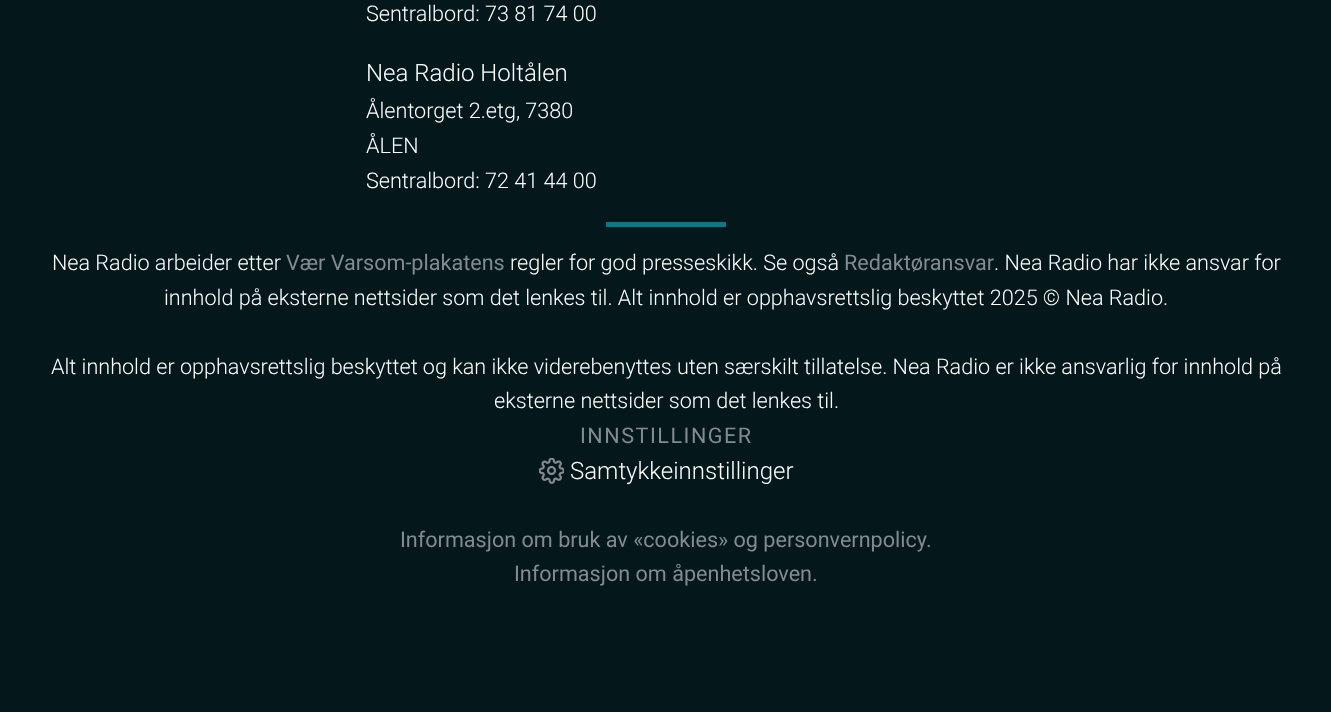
<!DOCTYPE html>
<meta charset="utf-8">
<style>body { margin: 0 } canvas { display: block }</style>
<canvas id="canvas" width="1331" height="712"></canvas>
<img id="img1" src="images/1.png" hidden>
<script>
window.onload = function () {
    const canvas = document.getElementById('canvas');
    const context = canvas.getContext('2d');
    context.miterLimit = 4;
    context.fontKerning = 'normal';

    context.fillStyle = 'rgb(4, 23, 27)';
    context.fillRect(0, 0, 1331, 712);
    context.fillStyle = 'rgb(19, 115, 137)';
    context.fillRect(606, 222, 120, 5);
    context.drawImage(document.getElementById('img1'), 539, 458, 25, 26);
    context.font = '300 21.6px Roboto';
    context.fillStyle = 'rgb(255, 255, 255)';
    context.fillText('Sentralbord: 73 81 74 00', 366, 21);
    context.font = '300 24px Roboto';
    context.fillText('Nea Radio Holtålen', 366, 81);
    context.font = '300 21.6px Roboto';
    context.fillText('Ålentorget 2.etg, 7380', 366, 118);
    context.fillText('ÅLEN', 366, 153);
    context.fillText('Sentralbord: 72 41 44 00', 366, 188);
    context.fillText('Nea Radio arbeider etter', 52, 270);
    context.font = '21.6px Roboto';
    context.fillStyle = 'rgb(130, 139, 141)';
    context.fillText('Vær Varsom-plakatens', 286, 270);
    context.font = '300 21.6px Roboto';
    context.fillStyle = 'rgb(255, 255, 255)';
    context.fillText('regler for god presseskikk. Se også', 510, 270);
    context.font = '21.6px Roboto';
    context.fillStyle = 'rgb(130, 139, 141)';
    context.fillText('Redaktøransvar', 844, 270);
    context.font = '300 21.6px Roboto';
    context.fillStyle = 'rgb(255, 255, 255)';
    context.fillText('. Nea Radio har ikke ansvar for', 994, 270);
    context.fillText('innhold på eksterne nettsider som det lenkes til. Alt innhold er opphavsrettslig beskyttet 2025 © Nea Radio.', 164, 305);
    context.fillText('Alt innhold er opphavsrettslig beskyttet og kan ikke viderebenyttes uten særskilt tillatelse. Nea Radio er ikke ansvarlig for innhold på', 51, 374);
    context.fillText('eksterne nettsider som det lenkes til.', 494, 408);
    context.letterSpacing = '1.5px';
    context.font = '21.6px Roboto';
    context.fillStyle = 'rgb(130, 139, 141)';
    context.fillText('INNSTILLINGER', 580, 443);
    context.letterSpacing = '0px';
    context.font = '300 24px Roboto';
    context.fillStyle = 'rgb(255, 255, 255)';
    context.fillText('Samtykkeinnstillinger', 570, 479);
    context.font = '21.6px Roboto';
    context.fillStyle = 'rgb(130, 139, 141)';
    context.fillText('Informasjon om bruk av «cookies» og personvernpolicy.', 400, 547);
    context.fillText('Informasjon om åpenhetsloven.', 514, 581);
};
</script>
